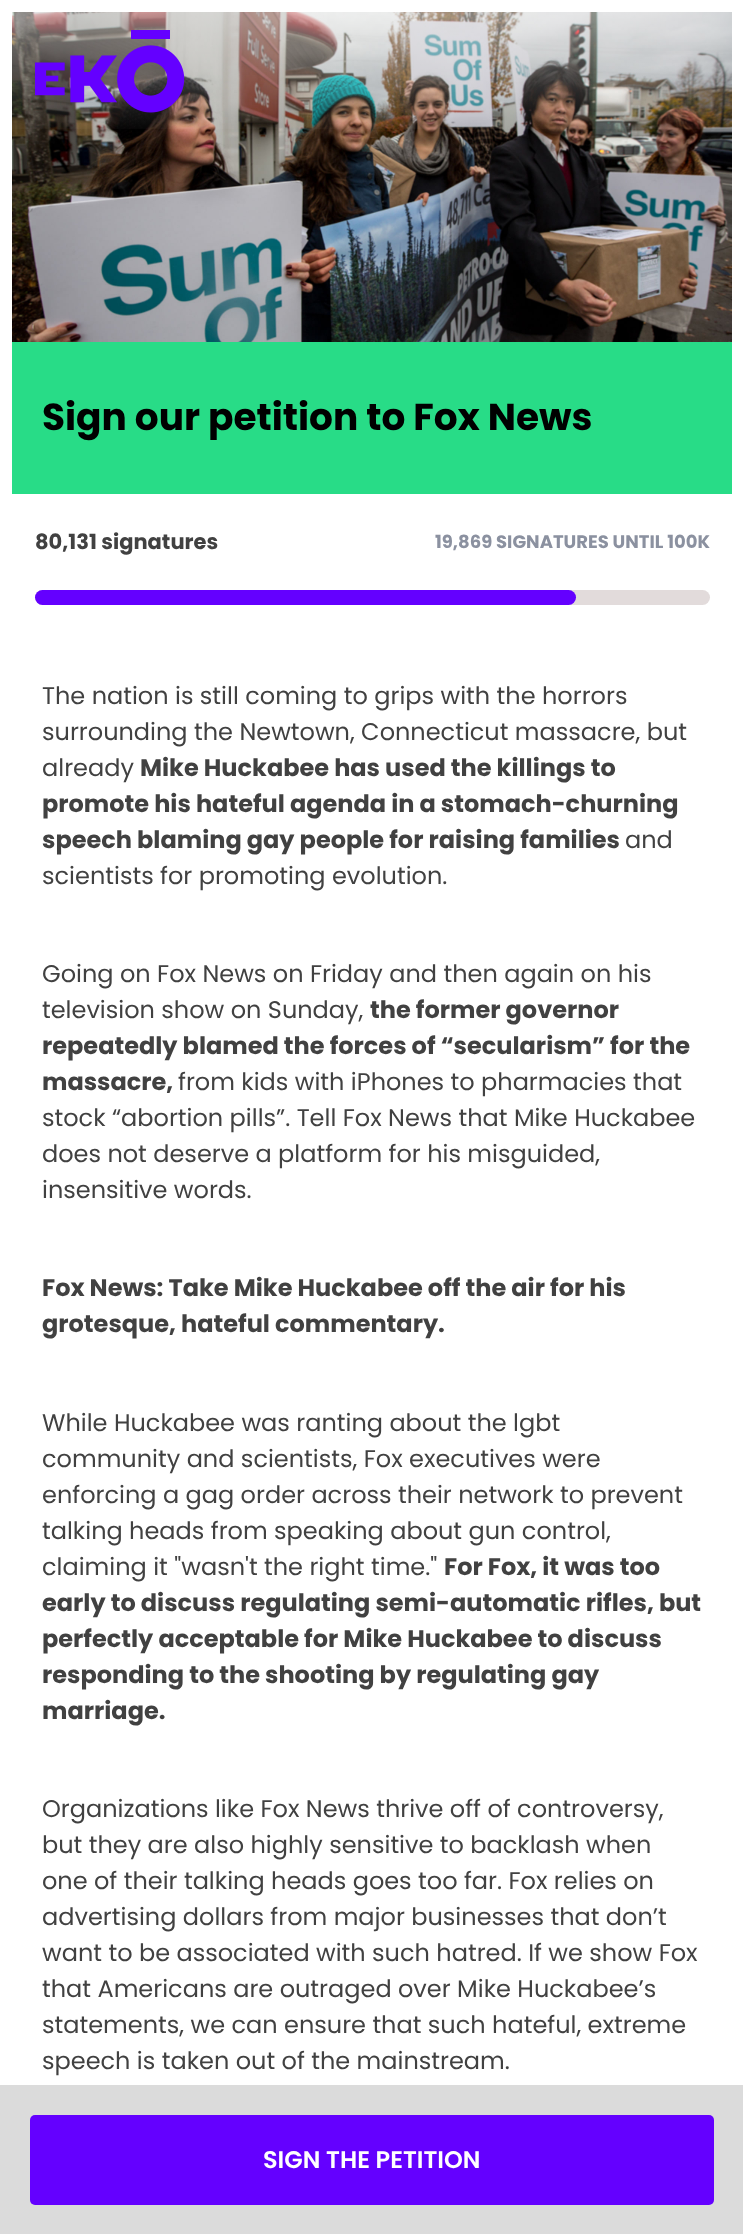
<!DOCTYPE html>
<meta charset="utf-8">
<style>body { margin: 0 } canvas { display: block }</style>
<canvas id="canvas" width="743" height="2234"></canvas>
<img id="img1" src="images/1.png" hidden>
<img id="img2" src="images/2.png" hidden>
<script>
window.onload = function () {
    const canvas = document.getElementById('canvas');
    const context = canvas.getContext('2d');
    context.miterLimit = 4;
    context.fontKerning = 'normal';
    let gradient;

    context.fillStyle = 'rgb(255, 255, 255)';
    context.fillRect(0, 0, 743, 2234);
    context.drawImage(document.getElementById('img1'), 12, 12, 720, 330);
    gradient = context.createLinearGradient(384, 0, 384, 135);
    gradient.addColorStop(0, 'rgba(255, 255, 255, 0.5)');
    gradient.addColorStop(1, 'rgba(255, 255, 255, 0)');
    context.fillStyle = gradient;
    context.fillRect(12, 12, 720, 117);
    context.drawImage(document.getElementById('img2'), 35, 30, 150, 83);
    context.fillStyle = 'rgb(40, 220, 135)';
    context.fillRect(12, 342, 720, 152);
    context.fillStyle = 'rgb(226, 219, 219)';
    context.beginPath();
    context.roundRect(35, 590, 675, 15, 7.5);
    context.fill();
    context.fillStyle = 'rgb(100, 0, 255)';
    context.beginPath();
    context.roundRect(35, 590, 541, 15, 7.5);
    context.fill();
    context.fillStyle = 'rgb(219, 219, 219)';
    context.fillRect(0, 2085, 743, 149);
    context.fillStyle = 'rgb(100, 0, 255)';
    context.beginPath();
    context.roundRect(30, 2115, 684, 90, 5);
    context.fill();
    context.font = 'bold 37.5px Poppins';
    context.fillStyle = 'rgb(0, 0, 0)';
    context.fillText('Sign our petition to Fox News', 42, 430);
    context.font = 'bold 21px Poppins';
    context.fillStyle = 'rgb(65, 65, 65)';
    context.fillText('80,131 signatures', 35, 549);
    context.font = 'bold 18px Poppins';
    context.fillStyle = 'rgb(139, 145, 160)';
    context.fillText('19,869 SIGNATURES UNTIL 100K', 435, 548);
    context.font = '24px Poppins';
    context.fillStyle = 'rgb(65, 65, 65)';
    context.fillText('The nation is still coming to grips with the horrors', 42, 704);
    context.fillText('surrounding the Newtown, Connecticut massacre, but', 42, 740);
    context.fillText('already', 42, 776);
    context.font = 'bold 24px Poppins';
    context.fillText('Mike Huckabee has used the killings to', 140, 776);
    context.fillText('promote his hateful agenda in a stomach-churning', 42, 812);
    context.fillText('speech blaming gay people for raising families', 42, 848);
    context.font = '24px Poppins';
    context.fillText('and', 625, 848);
    context.fillText('scientists for promoting evolution.', 42, 884);
    context.fillText('Going on Fox News on Friday and then again on his', 42, 982);
    context.fillText('television show on Sunday,', 42, 1018);
    context.font = 'bold 24px Poppins';
    context.fillText('the former governor', 370, 1018);
    context.fillText('repeatedly blamed the forces of “secularism” for the', 42, 1054);
    context.fillText('massacre,', 42, 1090);
    context.font = '24px Poppins';
    context.fillText('from kids with iPhones to pharmacies that', 178, 1090);
    context.fillText('stock “abortion pills”. Tell Fox News that Mike Huckabee', 42, 1126);
    context.fillText('does not deserve a platform for his misguided,', 42, 1162);
    context.fillText('insensitive words.', 42, 1198);
    context.font = 'bold 24px Poppins';
    context.fillText('Fox News: Take Mike Huckabee off the air for his', 42, 1296);
    context.fillText('grotesque, hateful commentary.', 42, 1332);
    context.font = '24px Poppins';
    context.fillText('While Huckabee was ranting about the lgbt', 42, 1431);
    context.fillText('community and scientists, Fox executives were', 42, 1467);
    context.fillText('enforcing a gag order across their network to prevent', 42, 1503);
    context.fillText('talking heads from speaking about gun control,', 42, 1539);
    context.fillText('claiming it "wasn\'t the right time."', 42, 1575);
    context.font = 'bold 24px Poppins';
    context.fillText('For Fox, it was too', 444, 1575);
    context.fillText('early to discuss regulating semi-automatic rifles, but', 42, 1611);
    context.fillText('perfectly acceptable for Mike Huckabee to discuss', 42, 1647);
    context.fillText('responding to the shooting by regulating gay', 42, 1683);
    context.fillText('marriage.', 42, 1719);
    context.font = '24px Poppins';
    context.fillText('Organizations like Fox News thrive off of controversy,', 42, 1817);
    context.fillText('but they are also highly sensitive to backlash when', 42, 1853);
    context.fillText('one of their talking heads goes too far. Fox relies on', 42, 1889);
    context.fillText('advertising dollars from major businesses that don’t', 42, 1925);
    context.fillText('want to be associated with such hatred. If we show Fox', 42, 1961);
    context.fillText('that Americans are outraged over Mike Huckabee’s', 42, 1997);
    context.fillText('statements, we can ensure that such hateful, extreme', 42, 2033);
    context.fillText('speech is taken out of the mainstream.', 42, 2069);
    context.font = '600 24px Poppins';
    context.fillStyle = 'rgb(255, 255, 255)';
    context.fillText('SIGN THE PETITION', 263, 2168);
};
</script>
